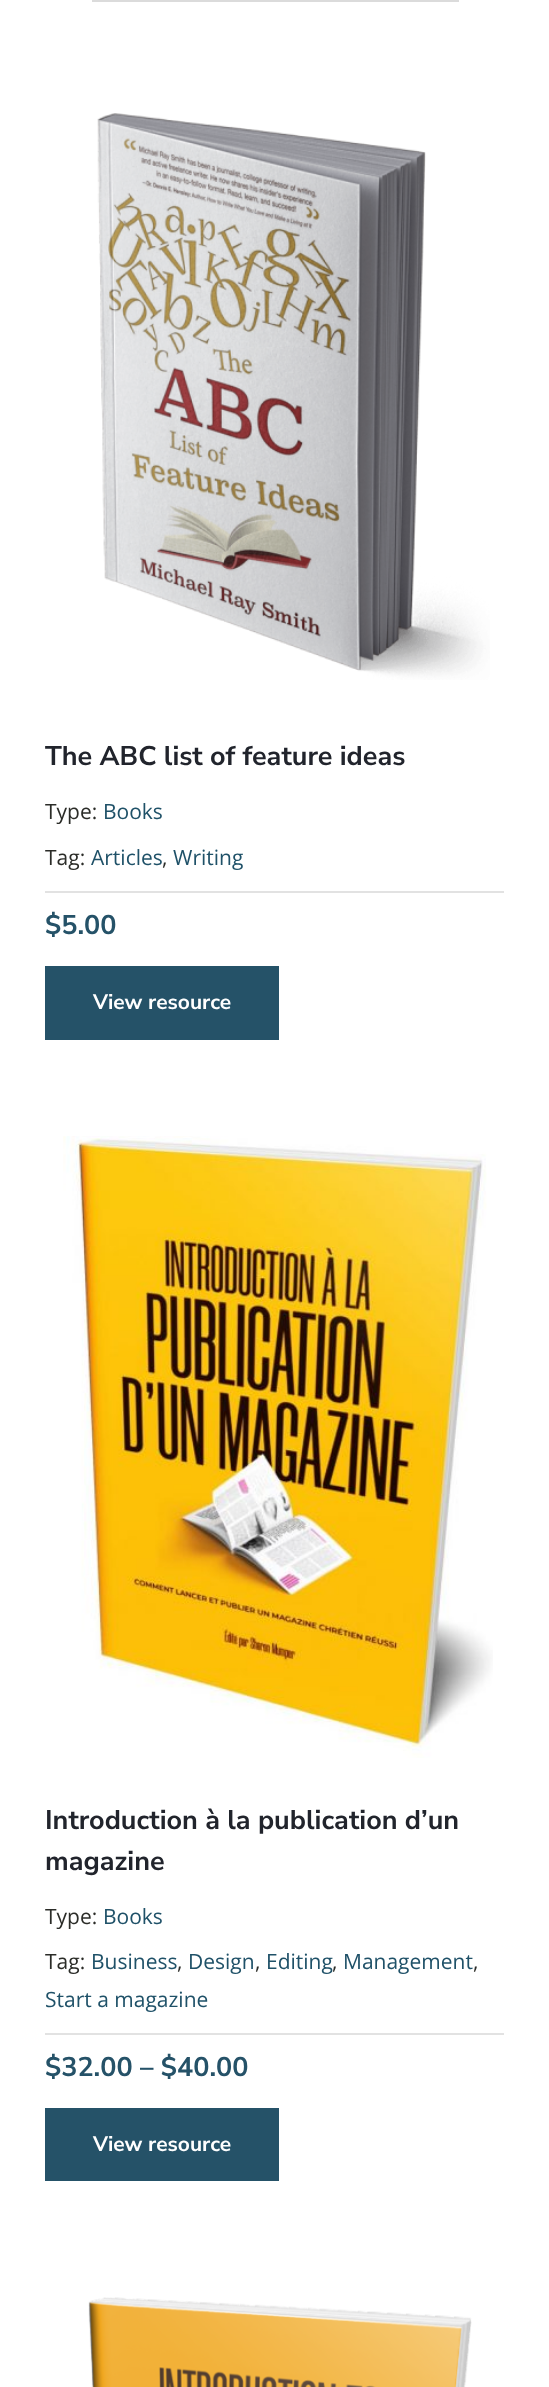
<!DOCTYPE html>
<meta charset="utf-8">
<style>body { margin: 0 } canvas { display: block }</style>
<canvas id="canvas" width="549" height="2387"></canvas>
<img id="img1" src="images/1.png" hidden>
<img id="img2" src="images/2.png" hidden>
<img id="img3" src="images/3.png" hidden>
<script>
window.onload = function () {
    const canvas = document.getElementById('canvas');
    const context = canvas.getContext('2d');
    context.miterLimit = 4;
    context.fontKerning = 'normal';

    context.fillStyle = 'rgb(255, 255, 255)';
    context.fillRect(0, 0, 549, 2387);
    context.strokeStyle = 'rgb(219, 219, 219)';
    context.lineWidth = 2;
    context.strokeRect(93, -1, 365, 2);
    context.drawImage(document.getElementById('img1'), 97, 113, 393, 567);
    context.fillStyle = 'rgb(226, 226, 226)';
    context.fillRect(45, 891, 459, 2);
    context.fillStyle = 'rgb(37, 82, 104)';
    context.fillRect(45, 966, 234, 74);
    context.drawImage(document.getElementById('img2'), 63, 1136, 430, 622);
    context.fillStyle = 'rgb(226, 226, 226)';
    context.fillRect(45, 2033, 459, 2);
    context.fillStyle = 'rgb(37, 82, 104)';
    context.fillRect(45, 2108, 234, 73);
    context.drawImage(document.getElementById('img3'), 88, 2297, 384, 90);
    context.font = 'bold 27px Nunito Sans';
    context.fillStyle = 'rgb(33, 36, 44)';
    context.fillText('The ABC list of feature ideas', 45, 765);
    context.font = '21px Open Sans';
    context.fillStyle = 'rgb(43, 44, 40)';
    context.fillText('Type:', 45, 819);
    context.fillStyle = 'rgb(31, 81, 104)';
    context.fillText('Books', 103, 819);
    context.fillStyle = 'rgb(43, 44, 40)';
    context.fillText('Tag:', 45, 865);
    context.fillStyle = 'rgb(31, 81, 104)';
    context.fillText('Articles', 91, 865);
    context.fillStyle = 'rgb(43, 44, 40)';
    context.fillText(',', 162, 865);
    context.fillStyle = 'rgb(31, 81, 104)';
    context.fillText('Writing', 173, 865);
    context.font = 'bold 27px Nunito Sans';
    context.fillStyle = 'rgb(37, 82, 104)';
    context.fillText('$5.00', 45, 934);
    context.font = 'bold 21px Nunito Sans';
    context.fillStyle = 'rgb(255, 255, 255)';
    context.fillText('View resource', 93, 1009);
    context.font = 'bold 27px Nunito Sans';
    context.fillStyle = 'rgb(33, 36, 44)';
    context.fillText('Introduction à la publication d’un', 45, 1829);
    context.fillText('magazine', 45, 1870);
    context.font = '21px Open Sans';
    context.fillStyle = 'rgb(43, 44, 40)';
    context.fillText('Type:', 45, 1924);
    context.fillStyle = 'rgb(31, 81, 104)';
    context.fillText('Books', 103, 1924);
    context.fillStyle = 'rgb(43, 44, 40)';
    context.fillText('Tag:', 45, 1969);
    context.fillStyle = 'rgb(31, 81, 104)';
    context.fillText('Business', 91, 1969);
    context.fillStyle = 'rgb(43, 44, 40)';
    context.fillText(',', 177, 1969);
    context.fillStyle = 'rgb(31, 81, 104)';
    context.fillText('Design', 188, 1969);
    context.fillStyle = 'rgb(43, 44, 40)';
    context.fillText(',', 255, 1969);
    context.fillStyle = 'rgb(31, 81, 104)';
    context.fillText('Editing', 266, 1969);
    context.fillStyle = 'rgb(43, 44, 40)';
    context.fillText(',', 332, 1969);
    context.fillStyle = 'rgb(31, 81, 104)';
    context.fillText('Management', 343, 1969);
    context.fillStyle = 'rgb(43, 44, 40)';
    context.fillText(',', 473, 1969);
    context.fillStyle = 'rgb(31, 81, 104)';
    context.fillText('Start a magazine', 45, 2007);
    context.font = 'bold 27px Nunito Sans';
    context.fillStyle = 'rgb(37, 82, 104)';
    context.fillText('$32.00 – $40.00', 45, 2076);
    context.font = 'bold 21px Nunito Sans';
    context.fillStyle = 'rgb(255, 255, 255)';
    context.fillText('View resource', 93, 2151);
};
</script>
